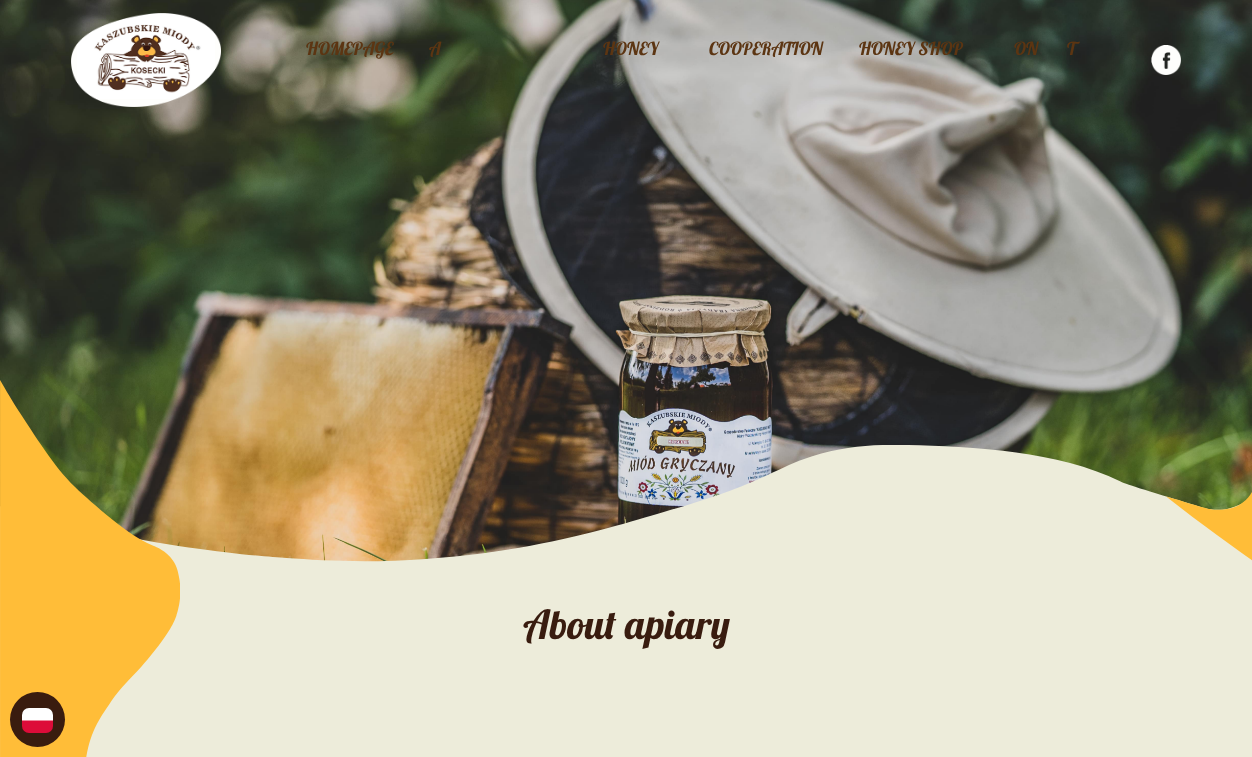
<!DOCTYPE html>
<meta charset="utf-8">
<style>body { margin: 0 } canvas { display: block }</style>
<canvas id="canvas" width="1252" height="757"></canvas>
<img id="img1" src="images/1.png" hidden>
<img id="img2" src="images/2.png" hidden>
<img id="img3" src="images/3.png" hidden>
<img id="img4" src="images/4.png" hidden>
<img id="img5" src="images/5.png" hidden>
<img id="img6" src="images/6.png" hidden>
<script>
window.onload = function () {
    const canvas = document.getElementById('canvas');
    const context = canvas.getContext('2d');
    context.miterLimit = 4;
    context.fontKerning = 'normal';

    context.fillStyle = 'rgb(237, 236, 218)';
    context.fillRect(0, 0, 1252, 757);
    context.drawImage(document.getElementById('img1'), 0, 0, 1252, 562);
    context.drawImage(document.getElementById('img2'), 0, 445, 1252, 155);
    context.drawImage(document.getElementById('img3'), 71, 13, 150, 94);
    context.drawImage(document.getElementById('img4'), 1151, 45, 30, 30);
    context.drawImage(document.getElementById('img5'), 0, 380, 180, 377);
    context.fillStyle = 'rgb(57, 28, 15)';
    context.beginPath();
    context.arc(37.5, 719.5, 27.5, 0, 2 * Math.PI);
    context.fill();
    context.drawImage(document.getElementById('img6'), 22, 708, 31, 25);
    context.font = '18px Lobster';
    context.fillStyle = 'rgb(92, 53, 18)';
    context.fillText('HOMEPAGE', 306, 55);
    context.fillText('A', 429, 55);
    context.fillText('HONEY', 603, 55);
    context.fillText('COOPERATION', 709, 55);
    context.fillText('HONEY SHOP', 859, 55);
    context.fillText('ON', 1014, 55);
    context.fillText('T', 1067, 55);
    context.font = '40px Lobster';
    context.fillStyle = 'rgb(57, 28, 15)';
    context.fillText('About apiary', 523, 639);
};
</script>
